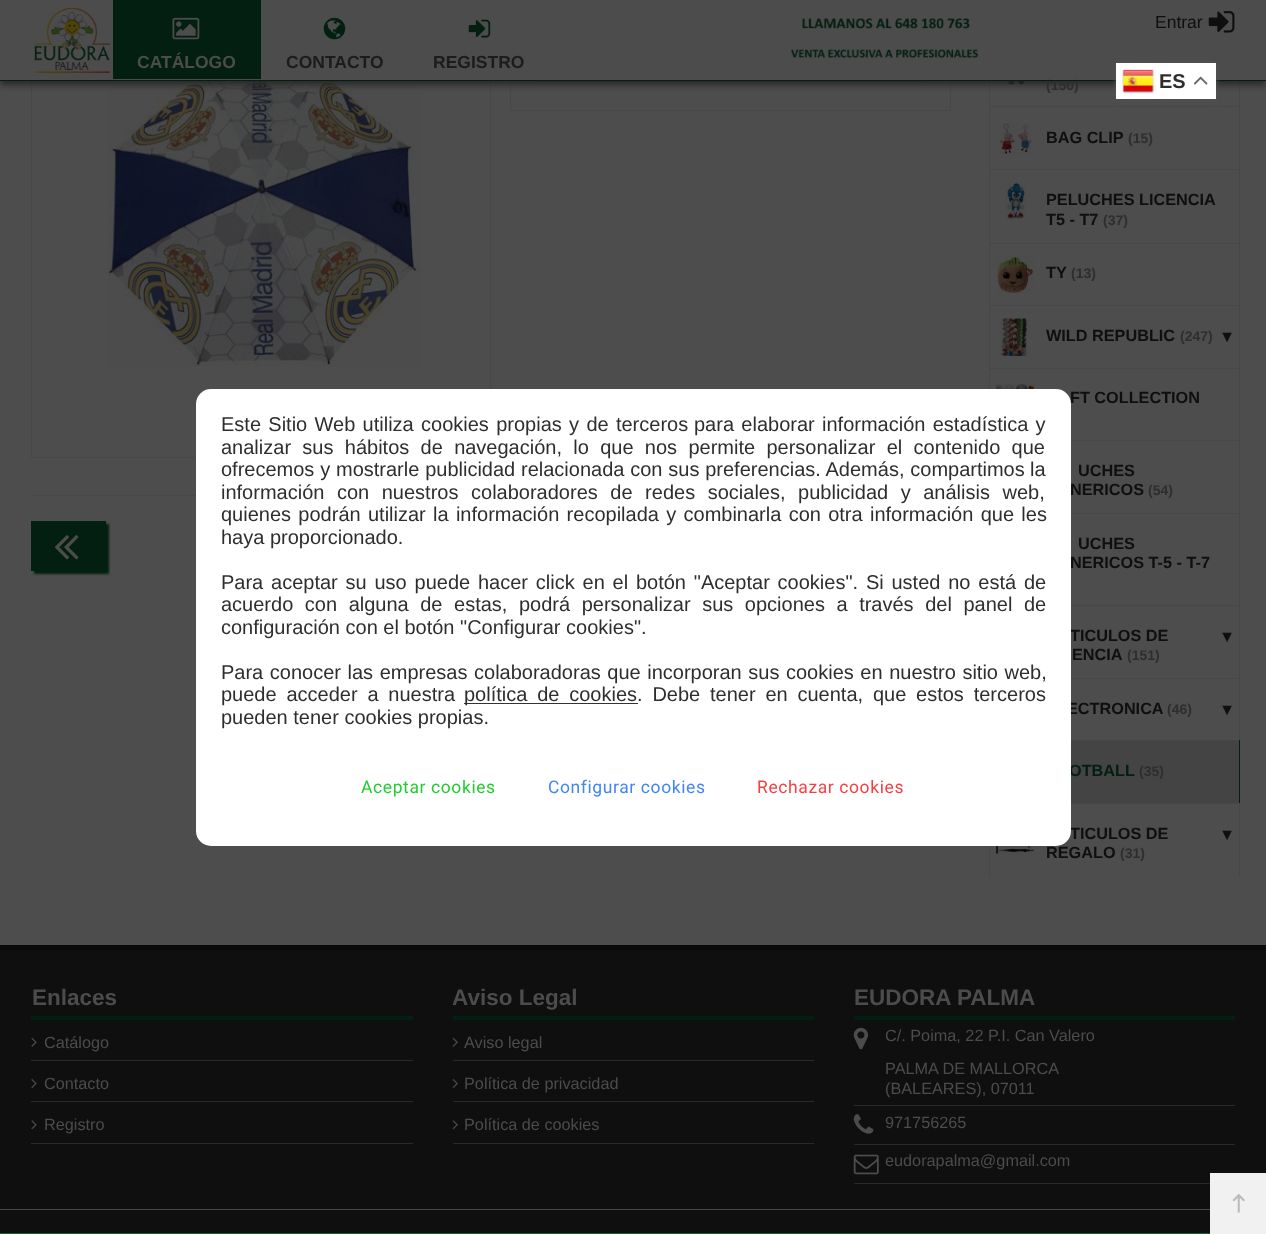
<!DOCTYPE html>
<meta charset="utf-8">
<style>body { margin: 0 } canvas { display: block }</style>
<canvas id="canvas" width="1266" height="1234"></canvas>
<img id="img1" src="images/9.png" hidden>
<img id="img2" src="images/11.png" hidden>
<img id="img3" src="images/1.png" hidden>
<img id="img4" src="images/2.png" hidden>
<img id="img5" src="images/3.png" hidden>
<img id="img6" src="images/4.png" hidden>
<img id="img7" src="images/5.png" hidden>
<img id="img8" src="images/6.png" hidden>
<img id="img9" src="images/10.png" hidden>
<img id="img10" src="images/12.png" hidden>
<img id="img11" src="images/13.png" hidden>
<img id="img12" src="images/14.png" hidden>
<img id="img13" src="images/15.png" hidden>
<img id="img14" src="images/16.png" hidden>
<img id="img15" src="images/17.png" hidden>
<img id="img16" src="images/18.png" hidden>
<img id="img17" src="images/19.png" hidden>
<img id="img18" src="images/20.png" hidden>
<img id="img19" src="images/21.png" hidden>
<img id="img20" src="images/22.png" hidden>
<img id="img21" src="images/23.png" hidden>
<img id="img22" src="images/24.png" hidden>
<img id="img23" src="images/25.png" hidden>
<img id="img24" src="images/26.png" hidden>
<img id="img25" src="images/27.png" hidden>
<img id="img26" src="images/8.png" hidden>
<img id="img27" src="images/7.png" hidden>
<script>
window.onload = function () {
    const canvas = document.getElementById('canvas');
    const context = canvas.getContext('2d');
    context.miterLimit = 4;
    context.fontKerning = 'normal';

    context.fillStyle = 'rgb(77, 77, 77)';
    context.fillRect(0, 0, 1266, 1234);
    context.strokeStyle = 'rgb(71, 71, 71)';
    context.strokeRect(31.5, -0.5, 459, 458);
    context.drawImage(document.getElementById('img1'), 108, 81, 314, 286);
    context.strokeRect(510.5, -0.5, 440, 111);
    context.fillStyle = 'rgb(71, 71, 71)';
    context.fillRect(536, 84, 389, 1);
    context.fillRect(1239, 81, 1, 27);
    context.fillRect(989, 81, 1, 27);
    context.drawImage(document.getElementById('img2'), 998, 81, 32, 4);
    context.fillStyle = 'rgb(41, 41, 41)';
    context.filter = 'blur(3px)';
    context.beginPath();
    context.rect(0, 4, 1266, 81);
    context.fill();
    context.filter = 'none';
    context.fillStyle = 'rgb(76, 76, 76)';
    context.fillRect(0, 0, 1266, 80);
    context.drawImage(document.getElementById('img3'), 34, 7, 77, 66);
    context.drawImage(document.getElementById('img4'), 1208, 11, 27, 22);
    context.drawImage(document.getElementById('img5'), 790, 18, 189, 40);
    context.fillStyle = 'rgb(2, 31, 17)';
    context.fillRect(113, 0, 148, 79);
    context.drawImage(document.getElementById('img6'), 172, 17, 28, 23);
    context.drawImage(document.getElementById('img7'), 323, 17, 23, 23);
    context.drawImage(document.getElementById('img8'), 468, 19, 23, 19);
    context.fillStyle = 'rgb(71, 71, 71)';
    context.fillRect(31, 495, 165, 1);
    context.fillStyle = 'rgb(2, 31, 17)';
    context.filter = 'blur(1px)';
    context.beginPath();
    context.rect(34, 524, 75, 50);
    context.fill();
    context.filter = 'none';
    context.fillRect(31, 521, 75, 50);
    context.drawImage(document.getElementById('img9'), 54, 535, 25, 25);
    context.fillStyle = 'rgb(71, 71, 71)';
    context.fillRect(989, 106, 251, 1);
    context.fillRect(1239, 106, 1, 64);
    context.fillRect(989, 106, 1, 64);
    context.drawImage(document.getElementById('img10'), 1000, 123, 32, 31);
    context.fillRect(989, 169, 251, 1);
    context.fillRect(1239, 169, 1, 75);
    context.fillRect(989, 169, 1, 75);
    context.drawImage(document.getElementById('img11'), 1005, 182, 21, 37);
    context.fillRect(989, 243, 251, 1);
    context.fillRect(1239, 243, 1, 63);
    context.fillRect(989, 243, 1, 63);
    context.drawImage(document.getElementById('img12'), 997, 256, 37, 38);
    context.fillRect(989, 305, 251, 1);
    context.fillRect(1239, 305, 1, 64);
    context.fillRect(989, 305, 1, 64);
    context.drawImage(document.getElementById('img13'), 1000, 318, 28, 38);
    context.fillRect(989, 368, 251, 1);
    context.fillRect(1239, 368, 1, 73);
    context.fillRect(989, 368, 1, 21);
    context.drawImage(document.getElementById('img14'), 996, 383, 38, 6);
    context.fillRect(1071, 440, 169, 1);
    context.fillRect(1239, 440, 1, 74);
    context.fillRect(1071, 513, 169, 1);
    context.fillRect(1239, 513, 1, 93);
    context.fillRect(1071, 605, 169, 1);
    context.fillRect(1239, 605, 1, 74);
    context.fillRect(1071, 678, 169, 1);
    context.fillRect(1239, 678, 1, 63);
    context.fillStyle = 'rgb(68, 68, 68)';
    context.fillRect(1071, 741, 168, 62);
    context.fillStyle = 'rgb(71, 71, 71)';
    context.fillRect(1071, 740, 169, 1);
    context.fillStyle = 'rgb(2, 31, 17)';
    context.fillRect(1239, 740, 1, 64);
    context.fillStyle = 'rgb(71, 71, 71)';
    context.fillRect(1071, 803, 169, 1);
    context.fillRect(1239, 803, 1, 73);
    context.fillRect(989, 846, 1, 30);
    context.drawImage(document.getElementById('img15'), 996, 846, 38, 8);
    context.fillStyle = 'rgb(15, 15, 15)';
    context.fillRect(0, 950, 1266, 283);
    context.fillStyle = 'rgb(10, 10, 10)';
    context.fillRect(0, 945, 1266, 5);
    context.fillStyle = 'rgb(2, 31, 17)';
    context.fillRect(31, 1016, 382, 4);
    context.fillStyle = 'rgb(41, 41, 41)';
    context.fillRect(31, 1060, 382, 1);
    context.drawImage(document.getElementById('img16'), 31, 1037, 6, 10);
    context.fillRect(31, 1101, 382, 1);
    context.drawImage(document.getElementById('img17'), 31, 1079, 6, 9);
    context.fillRect(31, 1143, 382, 1);
    context.drawImage(document.getElementById('img18'), 31, 1120, 6, 10);
    context.fillStyle = 'rgb(2, 31, 17)';
    context.fillRect(453, 1016, 361, 4);
    context.fillStyle = 'rgb(41, 41, 41)';
    context.fillRect(453, 1060, 361, 1);
    context.drawImage(document.getElementById('img19'), 452, 1037, 6, 10);
    context.fillRect(453, 1101, 361, 1);
    context.drawImage(document.getElementById('img20'), 452, 1079, 6, 9);
    context.fillRect(453, 1143, 361, 1);
    context.drawImage(document.getElementById('img21'), 452, 1120, 6, 10);
    context.fillStyle = 'rgb(2, 31, 17)';
    context.fillRect(854, 1016, 381, 4);
    context.fillStyle = 'rgb(41, 41, 41)';
    context.fillRect(854, 1105, 381, 1);
    context.drawImage(document.getElementById('img22'), 853, 1027, 15, 23);
    context.fillRect(854, 1144, 381, 1);
    context.drawImage(document.getElementById('img23'), 853, 1114, 21, 20);
    context.fillRect(854, 1183, 356, 1);
    context.drawImage(document.getElementById('img24'), 853, 1154, 26, 21);
    context.fillStyle = 'rgb(8, 103, 55)';
    context.fillRect(0, 1233, 1210, 1);
    context.fillStyle = 'rgb(241, 241, 241)';
    context.fillRect(1210, 1173, 56, 61);
    context.drawImage(document.getElementById('img25'), 1232, 1194, 13, 19);
    context.fillStyle = 'rgb(71, 71, 71)';
    context.fillRect(0, 1209, 1210, 1);
    context.font = '17.5px Liberation Sans';
    context.fillStyle = 'rgb(15, 15, 15)';
    context.fillText('Entrar', 1155, 28);
    context.font = 'bold 17.5px Liberation Sans';
    context.fillStyle = 'rgb(76, 76, 76)';
    context.fillText('CATÁLOGO', 137, 68);
    context.fillStyle = 'rgb(28, 28, 28)';
    context.fillText('CONTACTO', 286, 68);
    context.fillText('REGISTRO', 433, 68);
    context.font = 'bold 14px Liberation Sans';
    context.fillStyle = 'rgb(46, 46, 46)';
    context.fillText('(150)', 1046, 90);
    context.fillStyle = 'rgb(2, 31, 17)';
    context.fillRect(0, 80, 1266, 1);
    context.fillStyle = 'rgb(85, 85, 85)';
    context.filter = 'blur(2.5px)';
    context.beginPath();
    context.rect(1116, 63, 100, 36);
    context.fill();
    context.filter = 'none';
    context.fillStyle = 'rgb(255, 255, 255)';
    context.fillRect(1116, 63, 100, 36);
    context.drawImage(document.getElementById('img26'), 1194, 76, 14, 9);
    context.font = 'bold 20px Liberation Sans';
    context.fillStyle = 'rgb(46, 46, 46)';
    context.fillText('ES', 1159, 88);
    context.drawImage(document.getElementById('img27'), 1122, 69, 32, 25);
    context.font = 'bold 16.25px Liberation Sans';
    context.fillStyle = 'rgb(15, 15, 15)';
    context.fillText('BAG CLIP', 1046, 143);
    context.font = 'bold 14px Liberation Sans';
    context.fillStyle = 'rgb(46, 46, 46)';
    context.fillText('(15)', 1128, 143);
    context.font = 'bold 16.25px Liberation Sans';
    context.fillStyle = 'rgb(15, 15, 15)';
    context.fillText('PELUCHES LICENCIA', 1046, 205);
    context.fillText('T5 - T7', 1046, 225);
    context.font = 'bold 14px Liberation Sans';
    context.fillStyle = 'rgb(46, 46, 46)';
    context.fillText('(37)', 1103, 225);
    context.font = 'bold 16.25px Liberation Sans';
    context.fillStyle = 'rgb(15, 15, 15)';
    context.fillText('TY', 1046, 278);
    context.font = 'bold 14px Liberation Sans';
    context.fillStyle = 'rgb(46, 46, 46)';
    context.fillText('(13)', 1071, 278);
    context.font = 'bold 16.25px Liberation Sans';
    context.fillStyle = 'rgb(15, 15, 15)';
    context.fillText('WILD REPUBLIC', 1046, 341);
    context.font = 'bold 14px Liberation Sans';
    context.fillStyle = 'rgb(46, 46, 46)';
    context.fillText('(247)', 1180, 341);
    context.font = 'bold 16.25px Liberation Sans';
    context.fillStyle = 'rgb(15, 15, 15)';
    context.fillText('▼', 1219, 342);
    context.fillText('FT COLLECTION', 1070, 403);
    context.fillText('UCHES', 1078, 476);
    context.fillText('NERICOS', 1070, 495);
    context.font = 'bold 14px Liberation Sans';
    context.fillStyle = 'rgb(46, 46, 46)';
    context.fillText('(54)', 1148, 495);
    context.font = 'bold 16.25px Liberation Sans';
    context.fillStyle = 'rgb(15, 15, 15)';
    context.fillText('UCHES', 1078, 549);
    context.fillText('NERICOS T-5 - T-7', 1070, 568);
    context.fillText('TICULOS DE', 1070, 641);
    context.fillText('ENCIA', 1072, 660);
    context.font = 'bold 14px Liberation Sans';
    context.fillStyle = 'rgb(46, 46, 46)';
    context.fillText('(151)', 1127, 660);
    context.font = 'bold 16.25px Liberation Sans';
    context.fillStyle = 'rgb(15, 15, 15)';
    context.fillText('▼', 1219, 642);
    context.fillText('ECTRONICA', 1067, 714);
    context.font = 'bold 14px Liberation Sans';
    context.fillStyle = 'rgb(46, 46, 46)';
    context.fillText('(46)', 1167, 714);
    context.font = 'bold 16.25px Liberation Sans';
    context.fillStyle = 'rgb(15, 15, 15)';
    context.fillText('▼', 1219, 715);
    context.fillStyle = 'rgb(2, 31, 17)';
    context.fillText('OTBALL', 1069, 776);
    context.font = 'bold 14px Liberation Sans';
    context.fillStyle = 'rgb(46, 46, 46)';
    context.fillText('(35)', 1139, 776);
    context.font = 'bold 16.25px Liberation Sans';
    context.fillStyle = 'rgb(15, 15, 15)';
    context.fillText('TICULOS DE', 1070, 839);
    context.fillStyle = 'rgb(255, 255, 255)';
    context.beginPath();
    context.roundRect(196, 389, 875, 457, 15);
    context.fill();
    context.letterSpacing = '0.6px';
    context.font = '17.5px Roboto';
    context.fillStyle = 'rgb(244, 66, 66)';
    context.fillText('Rechazar cookies', 757, 793);
    context.fillStyle = 'rgb(66, 133, 244)';
    context.fillText('Configurar cookies', 548, 793);
    context.fillStyle = 'rgb(36, 204, 49)';
    context.fillText('Aceptar cookies', 361, 793);
    context.letterSpacing = '0px';
    context.font = '20px Liberation Sans';
    context.fillStyle = 'rgb(46, 46, 46)';
    context.fillText('pueden tener cookies propias.', 221, 724);
    context.fillStyle = 'rgb(51, 51, 51)';
    context.fillRect(464, 703, 174, 1);
    context.wordSpacing = '4.25px';
    context.fillStyle = 'rgb(46, 46, 46)';
    context.fillText('política de cookies. Debe tener en cuenta, que estos terceros', 464, 701);
    context.fillText('puede acceder a nuestra', 221, 701);
    context.wordSpacing = '1px';
    context.fillText('Para conocer las empresas colaboradoras que incorporan sus cookies en nuestro sitio web,', 221, 679);
    context.wordSpacing = '0px';
    context.fillText('configuración con el botón "Configurar cookies".', 221, 634);
    context.wordSpacing = '6px';
    context.fillText('acuerdo con alguna de estas, podrá personalizar sus opciones a través del panel de', 221, 611);
    context.wordSpacing = '2.25px';
    context.fillText('Para aceptar su uso puede hacer click en el botón "Aceptar cookies". Si usted no está de', 221, 589);
    context.wordSpacing = '0px';
    context.fillText('haya proporcionado.', 221, 544);
    context.wordSpacing = '1.75px';
    context.fillText('quienes podrán utilizar la información recopilada y combinarla con otra información que les', 221, 521);
    context.wordSpacing = '7px';
    context.fillText('información con nuestros colaboradores de redes sociales, publicidad y análisis web,', 221, 499);
    context.wordSpacing = '0px';
    context.fillText('la', 1030, 476);
    context.wordSpacing = '0.25px';
    context.fillText('ofrecemos y mostrarle publicidad relacionada con sus preferencias. Además, compartimos', 221, 476);
    context.wordSpacing = '5.75px';
    context.fillText('analizar sus hábitos de navegación, lo que nos permite personalizar el contenido que', 221, 454);
    context.wordSpacing = '1.75px';
    context.fillText('para elaborar información estadística y', 694, 431);
    context.fillText('Este Sitio Web utiliza cookies propias y de terceros', 221, 431);
    context.wordSpacing = '0px';
    context.font = 'bold 16.25px Liberation Sans';
    context.fillStyle = 'rgb(15, 15, 15)';
    context.fillText('REGALO', 1046, 858);
    context.font = 'bold 14px Liberation Sans';
    context.fillStyle = 'rgb(46, 46, 46)';
    context.fillText('(31)', 1120, 858);
    context.font = 'bold 16.25px Liberation Sans';
    context.fillStyle = 'rgb(15, 15, 15)';
    context.fillText('▼', 1219, 840);
    context.font = 'bold 22.5px Liberation Sans';
    context.fillStyle = 'rgb(76, 76, 76)';
    context.fillText('Enlaces', 32, 1005);
    context.font = '16.25px Liberation Sans';
    context.fillText('Catálogo', 44, 1048);
    context.fillText('Contacto', 44, 1089);
    context.fillText('Registro', 44, 1130);
    context.font = 'bold 22.5px Liberation Sans';
    context.fillText('Aviso Legal', 452, 1005);
    context.font = '16.25px Liberation Sans';
    context.fillText('Aviso legal', 464, 1048);
    context.fillText('Política de privacidad', 464, 1089);
    context.fillText('Política de cookies', 464, 1130);
    context.font = 'bold 22.5px Liberation Sans';
    context.fillText('EUDORA PALMA', 854, 1005);
    context.font = '16.25px Liberation Sans';
    context.fillText('C/. Poima, 22 P.I. Can Valero', 885, 1041);
    context.fillText('PALMA DE MALLORCA', 885, 1074);
    context.fillText('(BALEARES), 07011', 885, 1094);
    context.fillText('971756265', 885, 1128);
    context.fillText('eudorapalma@gmail.com', 885, 1166);
};
</script>
